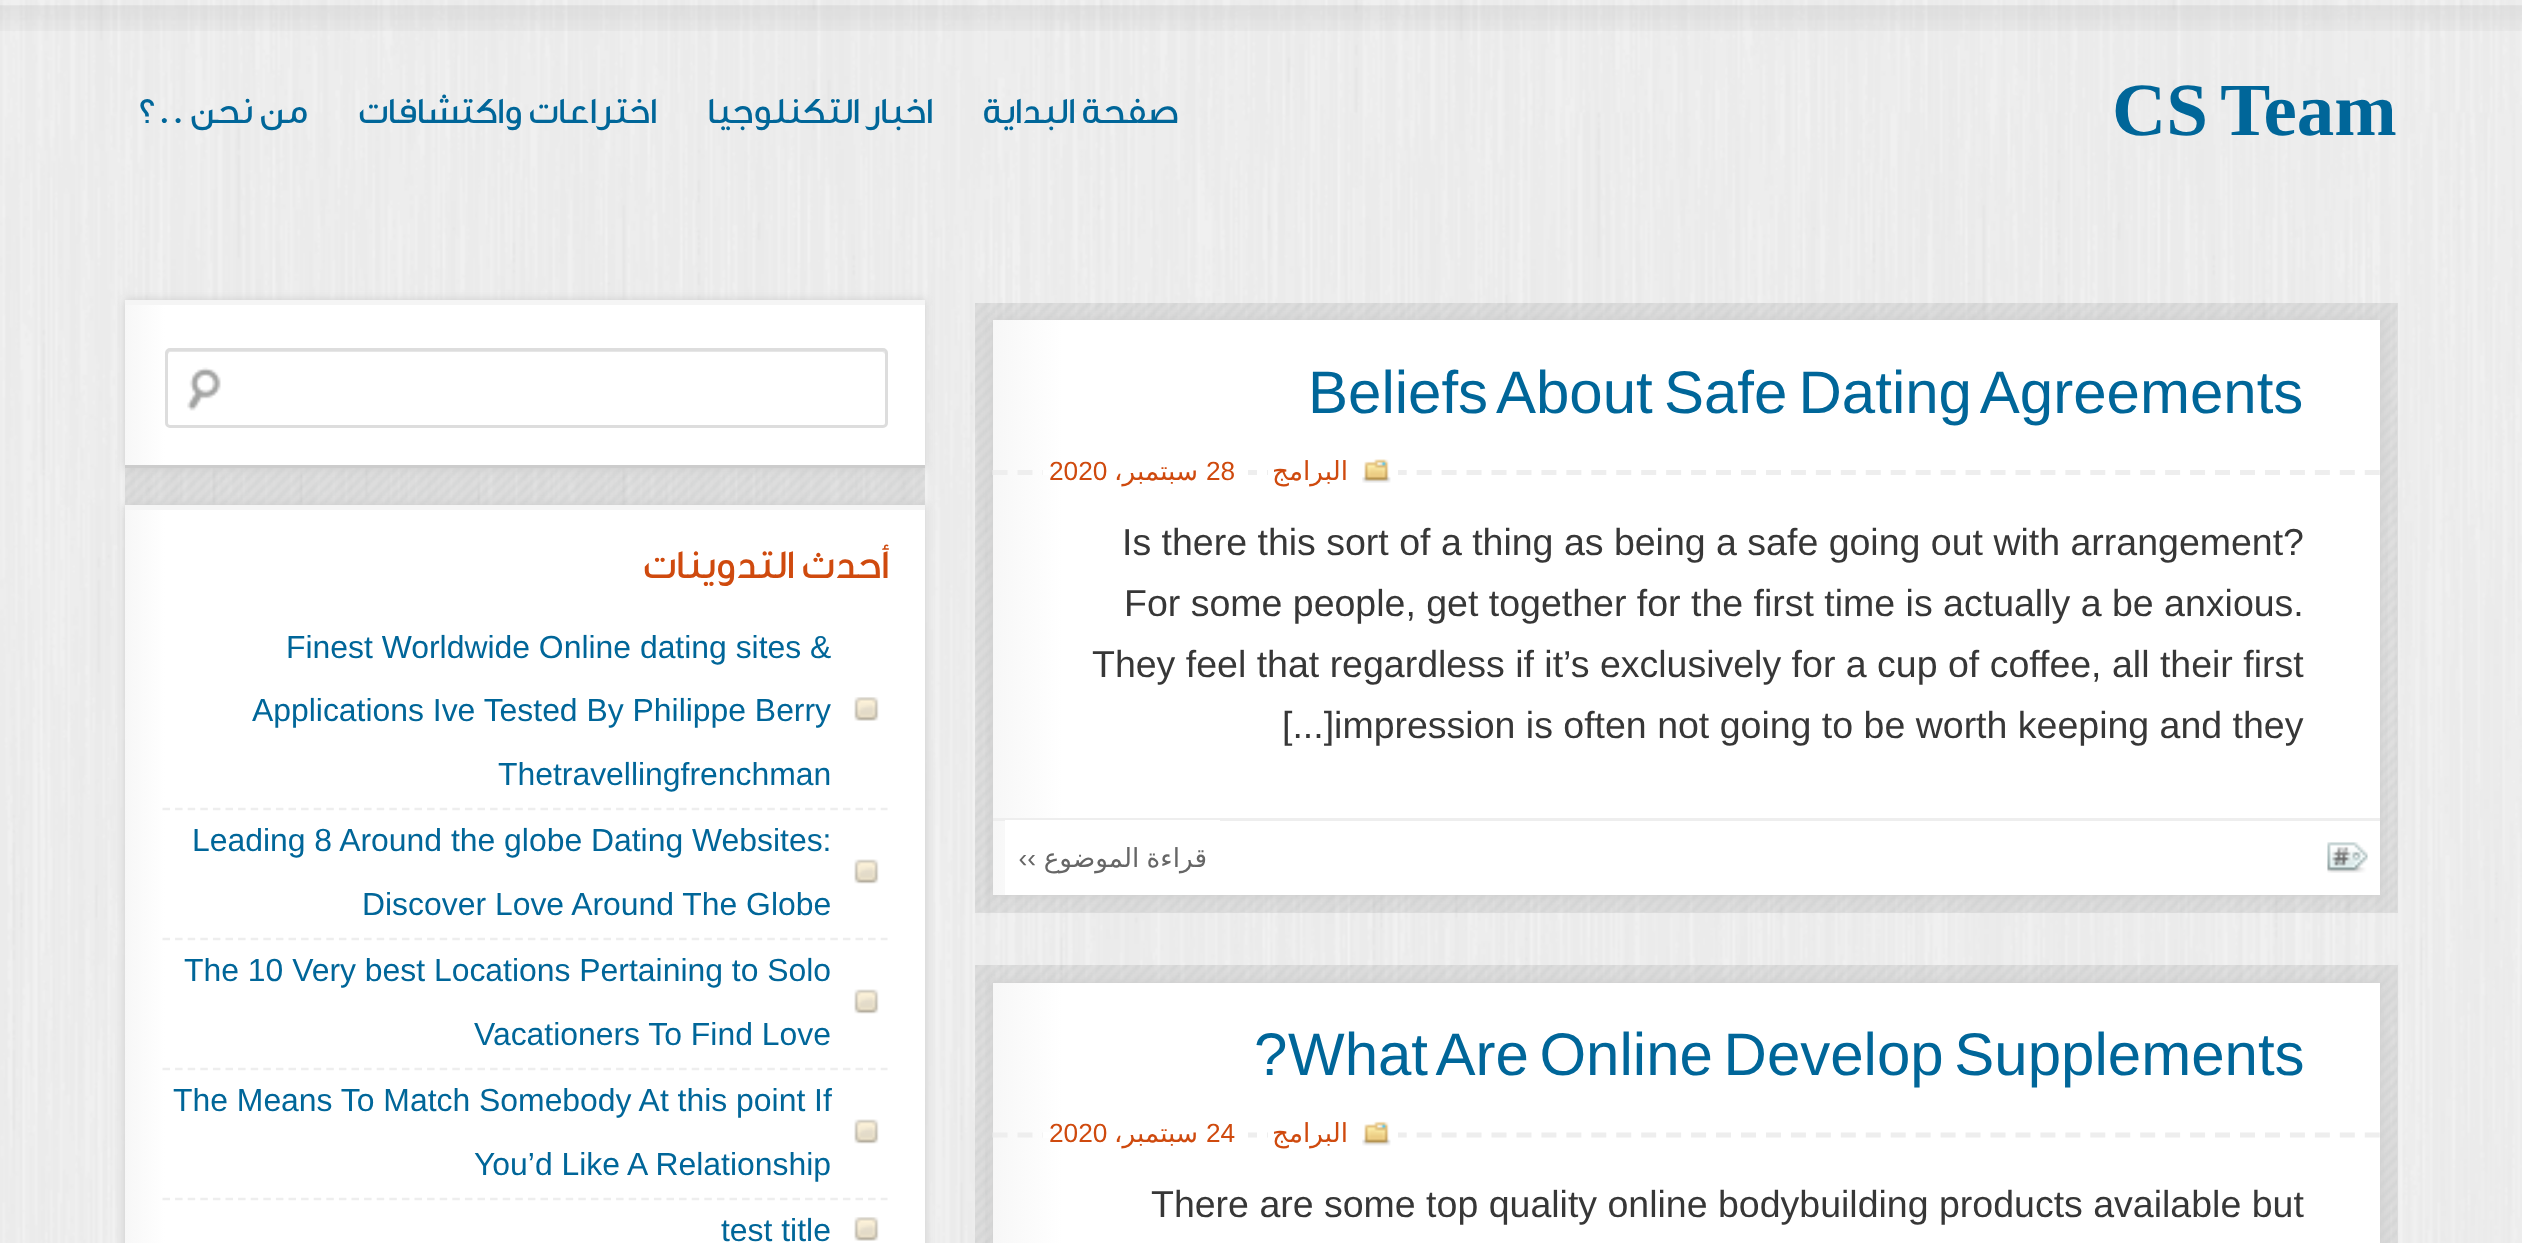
<!DOCTYPE html>
<meta charset="utf-8">
<style>body { margin: 0 } canvas { display: block }</style>
<canvas id="canvas" width="2522" height="1243"></canvas>
<img id="img1" src="images/1.png" hidden>
<img id="img2" src="images/2.png" hidden>
<img id="img3" src="images/3.png" hidden>
<img id="img4" src="images/4.png" hidden>
<img id="img5" src="images/5.png" hidden>
<img id="img6" src="images/6.png" hidden>
<img id="img7" src="images/7.png" hidden>
<img id="img8" src="images/8.png" hidden>
<img id="img9" src="images/9.png" hidden>
<img id="img10" src="images/10.png" hidden>
<img id="img11" src="images/11.png" hidden>
<script>
window.onload = function () {
    const canvas = document.getElementById('canvas');
    const context = canvas.getContext('2d');
    context.miterLimit = 4;
    context.fontKerning = 'normal';
    let gradient;

    context.fillStyle = 'rgb(245, 245, 245)';
    context.fillRect(0, 0, 2522, 1243);
    context.drawImage(document.getElementById('img1'), 0, 0, 2522, 1243);
    context.drawImage(document.getElementById('img2'), 0, 5, 2522, 26);
    context.fillStyle = 'rgba(90, 90, 90, 0.1)';
    context.fillRect(125, 468, 800, 37);
    context.drawImage(document.getElementById('img3'), 125, 468, 800, 37);
    context.fillStyle = 'rgb(204, 204, 204)';
    context.filter = 'blur(4px)';
    context.beginPath();
    context.rect(125, 300, 800, 168);
    context.fill();
    context.filter = 'none';
    gradient = context.createLinearGradient(125, 385, 925, 385);
    gradient.addColorStop(0, 'rgb(247, 247, 247)');
    gradient.addColorStop(0.05, 'rgb(255, 255, 255)');
    gradient.addColorStop(1, 'rgb(255, 255, 255)');
    context.fillStyle = gradient;
    context.fillRect(125, 305, 800, 160);
    context.fillStyle = 'rgb(245, 245, 245)';
    context.fillRect(125, 300, 800, 5);
    context.fillStyle = 'rgb(204, 204, 204)';
    context.fillRect(125, 465, 800, 3);
    context.drawImage(document.getElementById('img4'), 187, 367, 34, 44);
    context.fillStyle = 'rgb(230, 230, 230)';
    context.beginPath();
    context.moveTo(170, 352);
    context.lineTo(882, 352);
    context.bezierCurveTo(884, 352, 885, 354, 885, 355);
    context.bezierCurveTo(885, 353, 885, 350, 882, 350);
    context.lineTo(170, 350);
    context.lineTo(168, 351);
    context.lineTo(168, 355);
    context.bezierCurveTo(168, 354, 169, 352, 170, 352);
    context.closePath();
    context.fill();
    context.beginPath();
    context.roundRect(166.5, 349.5, 720, 77, 3.5);
    context.strokeStyle = 'rgb(221, 221, 221)';
    context.lineWidth = 3;
    context.stroke();
    context.fillStyle = 'rgb(204, 204, 204)';
    context.filter = 'blur(4px)';
    context.beginPath();
    context.rect(125, 505, 800, 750);
    context.fill();
    context.filter = 'none';
    gradient = context.createLinearGradient(125, 1231, 925, 1231);
    gradient.addColorStop(0, 'rgb(247, 247, 247)');
    gradient.addColorStop(0.05, 'rgb(255, 255, 255)');
    gradient.addColorStop(1, 'rgb(255, 255, 255)');
    context.fillStyle = gradient;
    context.fillRect(125, 510, 800, 733);
    context.fillStyle = 'rgb(245, 245, 245)';
    context.fillRect(125, 505, 800, 5);
    context.drawImage(document.getElementById('img5'), 854, 697, 25, 24);
    context.beginPath();
    context.moveTo(162.5, 809);
    context.lineTo(887.5, 809);
    context.strokeStyle = 'rgb(238, 238, 238)';
    context.lineWidth = 2.5;
    context.setLineDash([7.5, 5.1]);
    context.stroke();
    context.drawImage(document.getElementById('img6'), 854, 859, 25, 25);
    context.beginPath();
    context.moveTo(162.5, 939);
    context.lineTo(887.5, 939);
    context.stroke();
    context.drawImage(document.getElementById('img6'), 854, 989, 25, 25);
    context.beginPath();
    context.moveTo(162.5, 1069);
    context.lineTo(887.5, 1069);
    context.stroke();
    context.drawImage(document.getElementById('img6'), 854, 1119, 25, 25);
    context.beginPath();
    context.moveTo(162.5, 1199);
    context.lineTo(887.5, 1199);
    context.stroke();
    context.drawImage(document.getElementById('img5'), 854, 1217, 25, 24);
    context.fillStyle = 'rgba(153, 153, 153, 0.2)';
    context.fillRect(975, 303, 1423, 610);
    context.drawImage(document.getElementById('img7'), 975, 303, 1422, 609);
    context.fillStyle = 'rgb(204, 204, 204)';
    context.filter = 'blur(4px)';
    context.beginPath();
    context.rect(993, 320, 1387, 575);
    context.fill();
    context.filter = 'none';
    gradient = context.createLinearGradient(993, 608, 2380, 607);
    gradient.addColorStop(0, 'rgb(247, 247, 247)');
    gradient.addColorStop(0.05, 'rgb(255, 255, 255)');
    gradient.addColorStop(1, 'rgb(255, 255, 255)');
    context.fillStyle = gradient;
    context.fillRect(993, 320, 1387, 575);
    context.beginPath();
    context.moveTo(992.5, 472.5);
    context.lineTo(2380, 472.5);
    context.lineWidth = 5;
    context.setLineDash([15, 9.95]);
    context.stroke();
    context.fillStyle = 'rgb(255, 255, 255)';
    context.fillRect(1043, 470, 205, 5);
    context.fillRect(1268, 470, 130, 5);
    context.drawImage(document.getElementById('img8'), 1362, 459, 29, 24);
    context.fillStyle = 'rgb(238, 238, 238)';
    context.fillRect(993, 818, 1387, 3);
    context.fillStyle = 'rgb(255, 255, 255)';
    context.fillRect(1005, 820, 215, 75);
    context.drawImage(document.getElementById('img9'), 2327, 842, 41, 31);
    context.fillStyle = 'rgba(153, 153, 153, 0.2)';
    context.fillRect(975, 965, 1423, 278);
    context.drawImage(document.getElementById('img10'), 975, 965, 1422, 278);
    context.fillStyle = 'rgb(204, 204, 204)';
    context.filter = 'blur(4px)';
    context.beginPath();
    context.rect(993, 983, 1387, 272);
    context.fill();
    context.filter = 'none';
    gradient = context.createLinearGradient(993, 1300, 2380, 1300);
    gradient.addColorStop(0, 'rgb(247, 247, 247)');
    gradient.addColorStop(0.05, 'rgb(255, 255, 255)');
    gradient.addColorStop(1, 'rgb(255, 255, 255)');
    context.fillStyle = gradient;
    context.fillRect(993, 983, 1387, 260);
    context.beginPath();
    context.moveTo(992.5, 1135);
    context.lineTo(2380, 1135);
    context.stroke();
    context.fillStyle = 'rgb(255, 255, 255)';
    context.fillRect(1043, 1132, 205, 6);
    context.fillRect(1268, 1132, 130, 6);
    context.drawImage(document.getElementById('img11'), 1362, 1121, 29, 25);
    context.direction = 'rtl';
    context.font = '500 37.5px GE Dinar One';
    context.fillStyle = 'rgb(0, 102, 153)';
    context.fillText('من نحن ..؟', 308, 123);
    context.fillText('اختراعات واكتشافات', 657, 123);
    context.fillText('اخبار التكنلوجيا', 933, 123);
    context.fillText('صفحة البداية', 1179, 123);
    context.wordSpacing = '-5px';
    context.direction = 'ltr';
    context.font = 'bold 75px Liberation Serif';
    context.fillText('CS Team', 2112, 135);
    context.wordSpacing = '0px';
    context.direction = 'rtl';
    context.font = '500 41.5px GE Dinar One';
    context.fillStyle = 'rgb(207, 74, 14)';
    context.fillText('أحدث التدوينات', 889, 578);
    context.direction = 'ltr';
    context.font = '31.9px Liberation Sans';
    context.fillStyle = 'rgb(0, 102, 153)';
    context.fillText('Finest Worldwide Online dating sites &', 286, 658);
    context.fillText('Applications Ive Tested By Philippe Berry', 252, 721);
    context.fillText('Thetravellingfrenchman', 498, 785);
    context.fillText('Leading 8 Around the globe Dating Websites:', 192, 851);
    context.fillText('Discover Love Around The Globe', 362, 915);
    context.fillText('The 10 Very best Locations Pertaining to Solo', 184, 981);
    context.fillText('Vacationers To Find Love', 474, 1045);
    context.fillText('The Means To Match Somebody At this point If', 173, 1111);
    context.fillText('You’d Like A Relationship', 474, 1175);
    context.fillText('test title', 721, 1241);
    context.wordSpacing = '-5.5px';
    context.font = '60px Liberation Sans';
    context.fillText('Beliefs About Safe Dating Agreements', 1308, 413);
    context.wordSpacing = '0px';
    context.font = '26.25px Liberation Sans';
    context.fillStyle = 'rgb(207, 74, 14)';
    context.fillText('2020', 1049, 480);
    context.direction = 'rtl';
    context.font = '26.25px DejaVu Sans';
    context.fillText('سبتمبر،', 1198, 480);
    context.direction = 'ltr';
    context.font = '26.25px Liberation Sans';
    context.fillText('28', 1206, 480);
    context.direction = 'rtl';
    context.font = '26.25px DejaVu Sans';
    context.fillText('البرامج', 1348, 480);
    context.direction = 'ltr';
    context.font = '37.5px Liberation Sans';
    context.fillStyle = 'rgb(55, 55, 55)';
    context.fillText('Is there this sort of a thing as being a safe going out with arrangement?', 1122, 555);
    context.fillText('For some people, get together for the first time is actually a be anxious.', 1124, 616);
    context.fillText('They feel that regardless if it’s exclusively for a cup of coffee, all their first', 1092, 677);
    context.fillText('[...]impression is often not going to be worth keeping and they', 1282, 738);
    context.direction = 'rtl';
    context.font = '26.25px Liberation Sans';
    context.fillStyle = 'rgb(102, 102, 102)';
    context.fillText('››', 1036, 867);
    context.wordSpacing = '-1px';
    context.font = '26.25px DejaVu Sans';
    context.fillText('قراءة الموضوع', 1207, 867);
    context.wordSpacing = '0px';
    context.direction = 'ltr';
    context.font = '60px Liberation Sans';
    context.fillStyle = 'rgb(0, 102, 153)';
    context.fillText('?', 1254, 1075);
    context.wordSpacing = '-6px';
    context.fillText('What Are Online Develop Supplements', 1288, 1075);
    context.wordSpacing = '0px';
    context.font = '26.25px Liberation Sans';
    context.fillStyle = 'rgb(207, 74, 14)';
    context.fillText('2020', 1049, 1142);
    context.direction = 'rtl';
    context.font = '26.25px DejaVu Sans';
    context.fillText('سبتمبر،', 1198, 1142);
    context.direction = 'ltr';
    context.font = '26.25px Liberation Sans';
    context.fillText('24', 1206, 1142);
    context.direction = 'rtl';
    context.font = '26.25px DejaVu Sans';
    context.fillText('البرامج', 1348, 1142);
    context.direction = 'ltr';
    context.font = '37.5px Liberation Sans';
    context.fillStyle = 'rgb(55, 55, 55)';
    context.fillText('There are some top quality online bodybuilding products available but', 1151, 1217);
};
</script>
